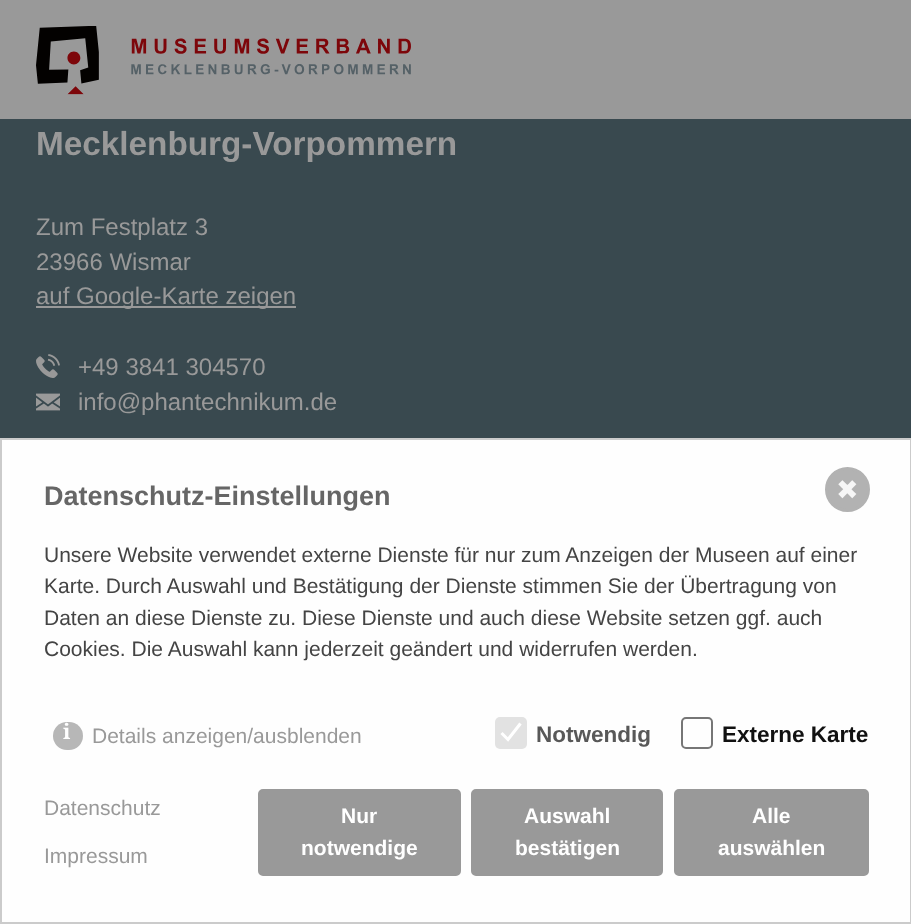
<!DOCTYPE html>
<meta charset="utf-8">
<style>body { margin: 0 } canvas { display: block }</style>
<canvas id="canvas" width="911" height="924"></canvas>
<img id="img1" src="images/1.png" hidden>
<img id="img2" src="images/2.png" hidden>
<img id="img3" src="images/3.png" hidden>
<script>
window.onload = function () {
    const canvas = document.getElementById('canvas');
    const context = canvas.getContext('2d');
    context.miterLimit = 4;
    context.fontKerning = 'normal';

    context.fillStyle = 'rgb(57, 73, 79)';
    context.fillRect(0, 0, 911, 924);
    context.fillStyle = 'rgb(153, 153, 153)';
    context.fillRect(0, 0, 911, 119);
    context.drawImage(document.getElementById('img1'), 36, 26, 375, 69);
    context.fillRect(36, 306, 260, 2);
    context.drawImage(document.getElementById('img2'), 36, 354, 24, 24);
    context.drawImage(document.getElementById('img3'), 36, 393, 24, 18);
    context.fillStyle = 'rgb(254, 254, 254)';
    context.beginPath();
    context.rect(1, 439, 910, 484);
    context.fill();
    context.strokeStyle = 'rgb(203, 203, 203)';
    context.lineWidth = 2;
    context.stroke();
    context.fillStyle = 'rgb(178, 178, 178)';
    context.beginPath();
    context.arc(847.5, 489.5, 21, 0, 2 * Math.PI);
    context.fill();
    context.strokeStyle = 'rgb(178, 178, 178)';
    context.lineWidth = 3;
    context.stroke();
    context.fillStyle = 'rgb(183, 183, 183)';
    context.beginPath();
    context.roundRect(53, 722, 30, 28, 14);
    context.fill();
    context.fillStyle = 'rgb(226, 226, 226)';
    context.beginPath();
    context.roundRect(495, 717, 32, 32, 5);
    context.fill();
    context.beginPath();
    context.moveTo(501.5, 733);
    context.lineTo(508, 739.5);
    context.lineTo(520.5, 723.5);
    context.strokeStyle = 'rgb(255, 255, 255)';
    context.lineWidth = 3.1;
    context.stroke();
    context.beginPath();
    context.roundRect(682, 718, 30, 30, 4);
    context.strokeStyle = 'rgb(118, 118, 118)';
    context.lineWidth = 2;
    context.stroke();
    context.fillStyle = 'rgb(153, 153, 153)';
    context.beginPath();
    context.roundRect(259, 790, 201, 85, 4);
    context.fill();
    context.strokeStyle = 'rgb(153, 153, 153)';
    context.stroke();
    context.beginPath();
    context.roundRect(472, 790, 190, 85, 4);
    context.fill();
    context.stroke();
    context.beginPath();
    context.roundRect(675, 790, 193, 85, 4);
    context.fill();
    context.stroke();
    context.font = 'bold 33.3px Liberation Sans';
    context.fillText('Mecklenburg-Vorpommern', 36, 155);
    context.font = '24px Liberation Sans';
    context.fillText('Zum Festplatz 3', 36, 235);
    context.fillText('23966 Wismar', 36, 270);
    context.fillText('auf Google-Karte zeigen', 36, 304);
    context.fillText('+49 3841 304570', 78, 375);
    context.fillText('info@phantechnikum.de', 78, 410);
    context.font = '27px DejaVu Sans';
    context.fillStyle = 'rgb(246, 246, 246)';
    context.fillText('✖', 836, 499);
    context.font = 'bold 27px Liberation Sans';
    context.fillStyle = 'rgb(102, 102, 102)';
    context.fillText('Datenschutz-Einstellungen', 44, 505);
    context.font = '21px Liberation Sans';
    context.fillStyle = 'rgb(68, 68, 68)';
    context.fillText('Unsere Website verwendet externe Dienste für nur zum Anzeigen der Museen auf einer', 44, 562);
    context.fillText('Karte. Durch Auswahl und Bestätigung der Dienste stimmen Sie der Übertragung von', 44, 593);
    context.fillText('Daten an diese Dienste zu. Diese Dienste und auch diese Website setzen ggf. auch', 44, 625);
    context.fillText('Cookies. Die Auswahl kann jederzeit geändert und widerrufen werden.', 44, 656);
    context.font = 'bold 21px Noto Serif';
    context.fillStyle = 'rgb(255, 255, 255)';
    context.fillText('i', 63, 739);
    context.font = '21px Liberation Sans';
    context.fillStyle = 'rgb(153, 153, 153)';
    context.fillText('Details anzeigen/ausblenden', 92, 743);
    context.font = 'bold 22.5px Liberation Sans';
    context.fillStyle = 'rgb(88, 88, 88)';
    context.fillText('Notwendig', 536, 742);
    context.fillStyle = 'rgb(17, 17, 17)';
    context.fillText('Externe Karte', 722, 742);
    context.font = '21px Liberation Sans';
    context.fillStyle = 'rgb(153, 153, 153)';
    context.fillText('Datenschutz', 44, 815);
    context.fillText('Impressum', 44, 863);
    context.font = 'bold 21px Liberation Sans';
    context.fillStyle = 'rgb(255, 255, 255)';
    context.fillText('Nur', 341, 823);
    context.fillText('notwendige', 301, 855);
    context.fillText('Auswahl', 524, 823);
    context.fillText('bestätigen', 515, 855);
    context.fillText('Alle', 752, 823);
    context.fillText('auswählen', 718, 855);
};
</script>
